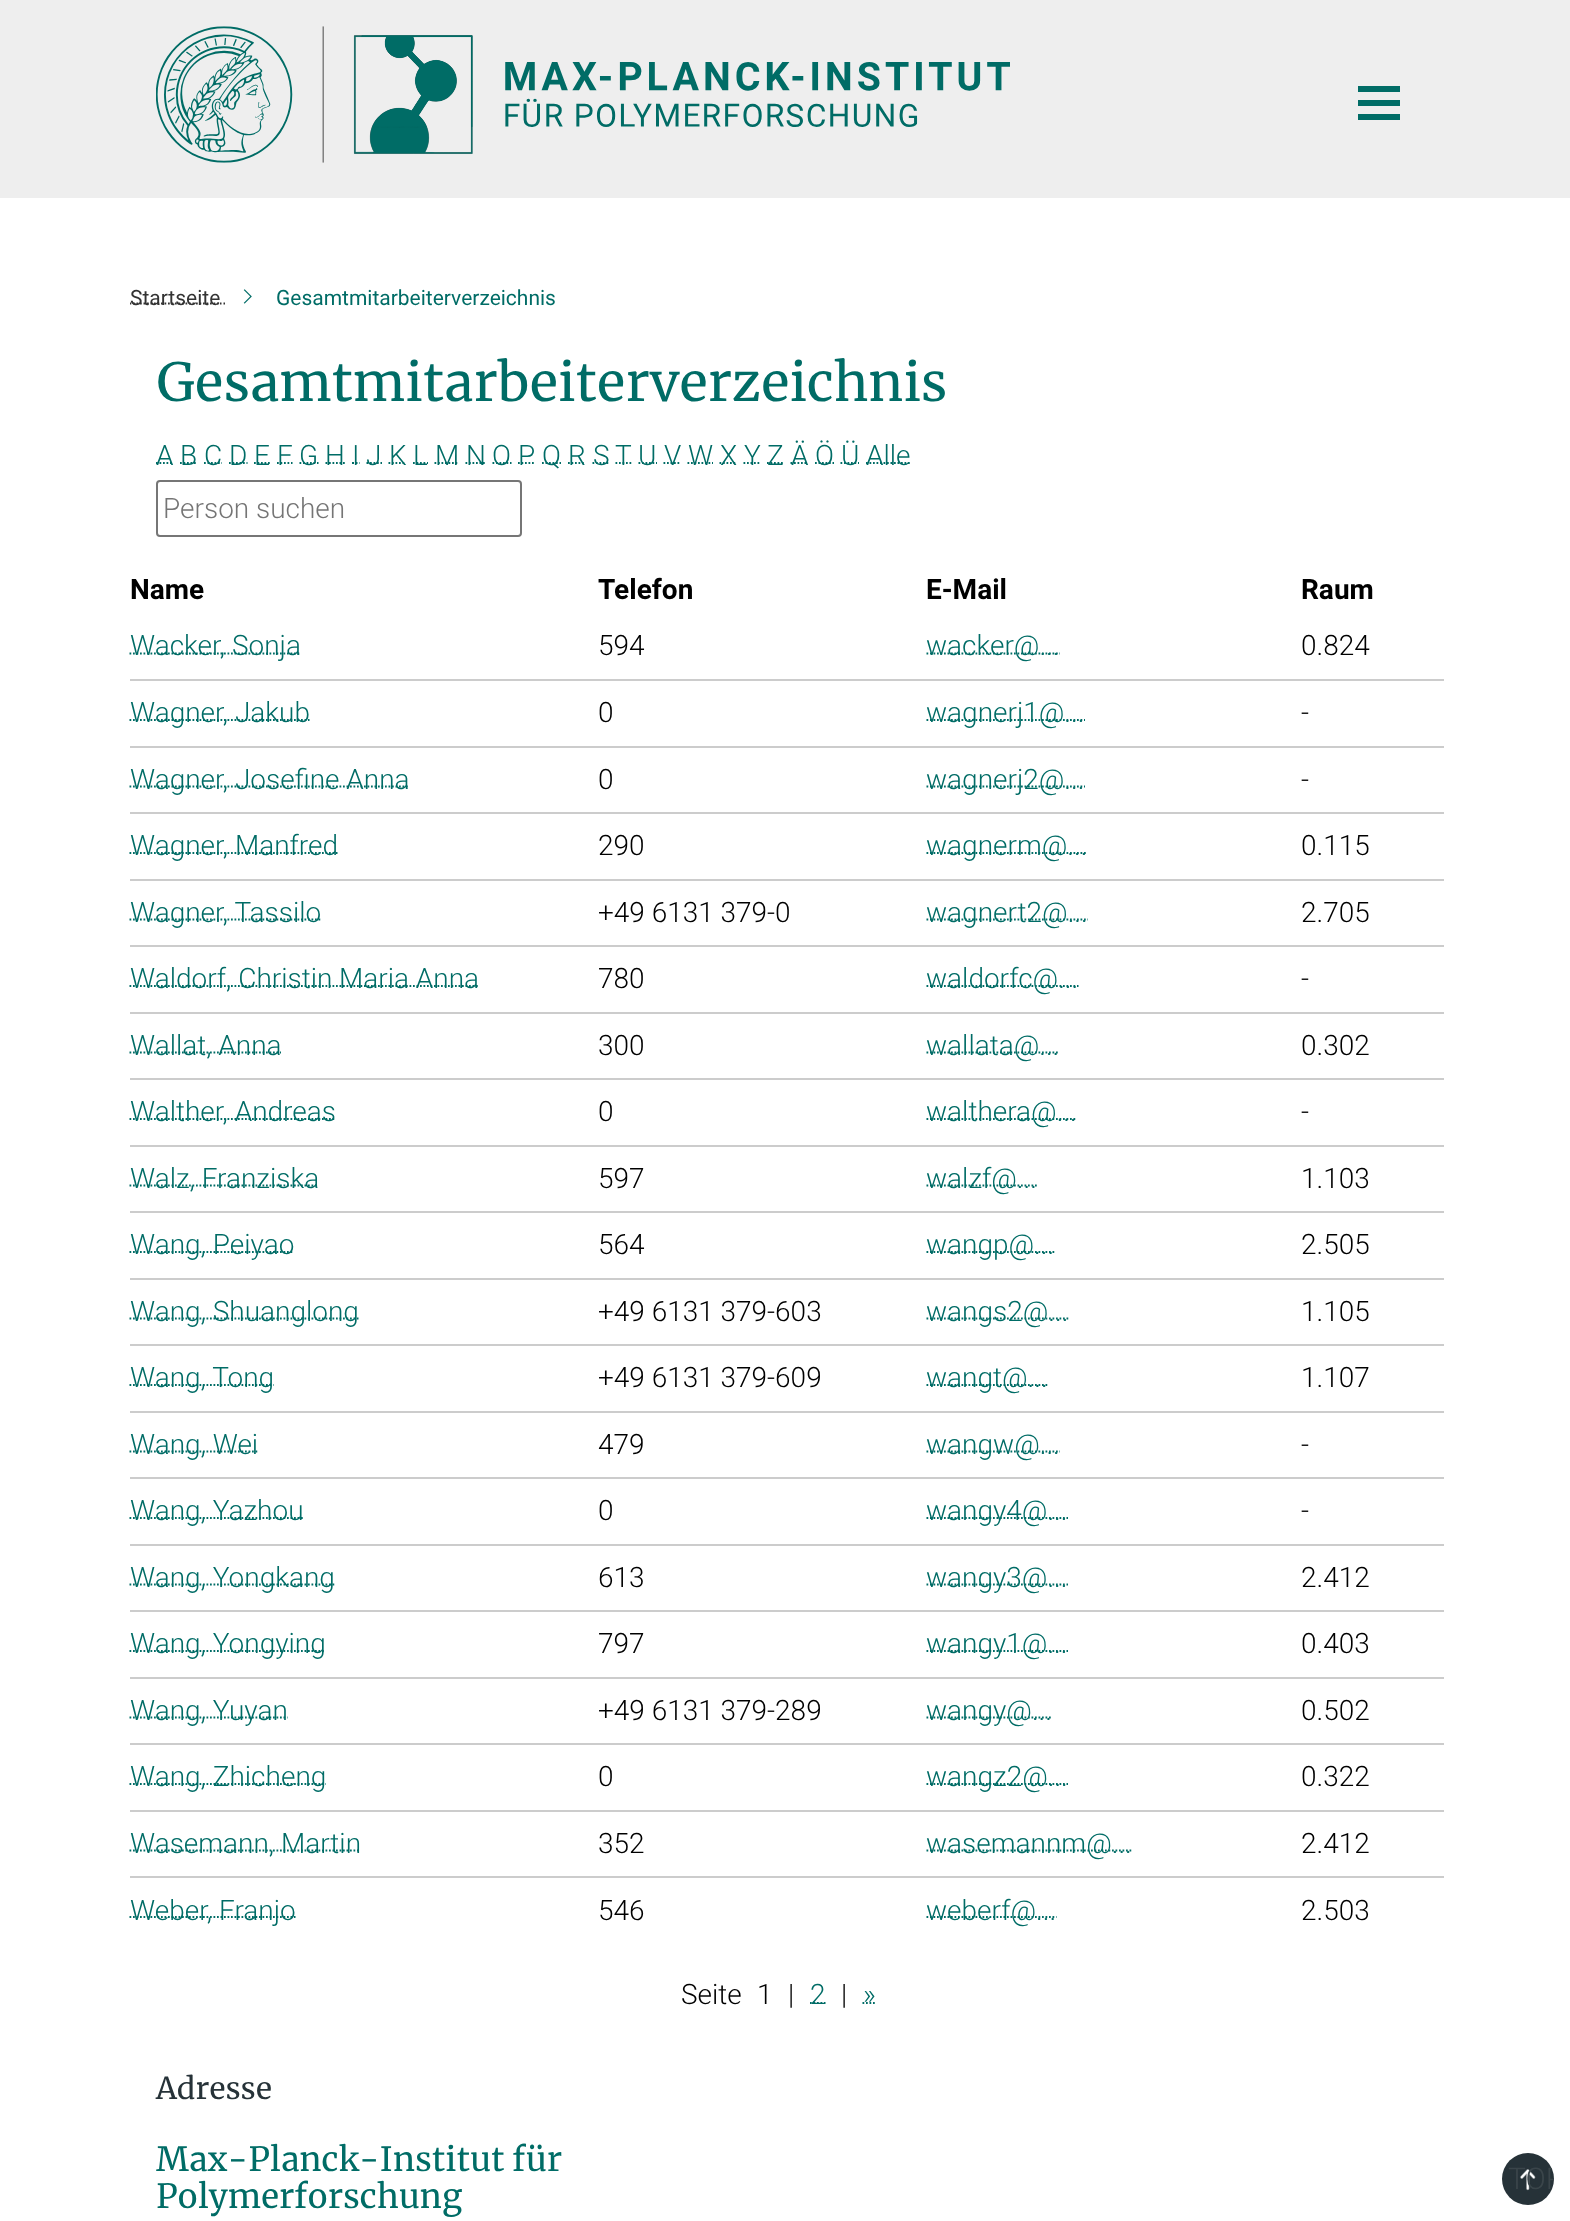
<!DOCTYPE html>
<meta charset="utf-8">
<style>body { margin: 0 } canvas { display: block }</style>
<canvas id="canvas" width="1570" height="2221"></canvas>
<img id="img1" src="images/1.png" hidden>
<img id="img2" src="images/2.png" hidden>
<img id="img3" src="images/3.png" hidden>
<script>
window.onload = function () {
    const canvas = document.getElementById('canvas');
    const context = canvas.getContext('2d');
    context.miterLimit = 4;
    context.fontKerning = 'normal';

    context.fillStyle = 'rgb(255, 255, 255)';
    context.fillRect(0, 0, 1570, 2221);
    context.fillStyle = 'rgb(238, 238, 238)';
    context.fillRect(0, 0, 1570, 198);
    context.drawImage(document.getElementById('img1'), 156, 26, 854, 137);
    context.fillStyle = 'rgb(0, 108, 102)';
    context.fillRect(1358, 86, 42, 6);
    context.fillRect(1358, 100, 42, 6);
    context.fillRect(1358, 114, 42, 6);
    context.save();
    context.beginPath();
    context.rect(130, 243, 1312, 104);
    context.clip();
    context.beginPath();
    context.moveTo(129.5, 303.5);
    context.lineTo(220, 303.5);
    context.strokeStyle = 'rgb(51, 51, 51)';
    context.lineWidth = 1.8;
    context.setLineDash([1.75, 1.75]);
    context.stroke();
    context.restore();
    context.beginPath();
    context.moveTo(220, 303.5);
    context.lineTo(221.5, 303.5);
    context.moveTo(223.5, 303.5);
    context.lineTo(225, 303.5);
    context.strokeStyle = 'rgb(51, 51, 51)';
    context.lineWidth = 1.8;
    context.stroke();
    context.drawImage(document.getElementById('img2'), 243, 289, 9, 15);
    context.beginPath();
    context.moveTo(156, 463);
    context.lineTo(173, 463);
    context.strokeStyle = 'rgb(0, 108, 102)';
    context.setLineDash([1.75, 1.75]);
    context.stroke();
    context.beginPath();
    context.moveTo(180, 463);
    context.lineTo(197, 463);
    context.stroke();
    context.beginPath();
    context.moveTo(204, 463);
    context.lineTo(222, 463);
    context.stroke();
    context.beginPath();
    context.moveTo(229, 463);
    context.lineTo(247.5, 463);
    context.stroke();
    context.beginPath();
    context.moveTo(254, 463);
    context.lineTo(270, 463);
    context.stroke();
    context.beginPath();
    context.moveTo(277, 463);
    context.lineTo(292.5, 463);
    context.stroke();
    context.beginPath();
    context.moveTo(299.5, 463);
    context.lineTo(318.5, 463);
    context.stroke();
    context.beginPath();
    context.moveTo(325.5, 463);
    context.lineTo(345.5, 463);
    context.stroke();
    context.beginPath();
    context.moveTo(352, 463);
    context.lineTo(354, 463);
    context.moveTo(355.5, 463);
    context.lineTo(357.5, 463);
    context.moveTo(359, 463);
    context.lineTo(359.5, 463);
    context.setLineDash([]);
    context.stroke();
    context.beginPath();
    context.moveTo(366.5, 463);
    context.lineTo(382, 463);
    context.setLineDash([1.75, 1.75]);
    context.stroke();
    context.beginPath();
    context.moveTo(388.5, 463);
    context.lineTo(406, 463);
    context.stroke();
    context.beginPath();
    context.moveTo(413, 463);
    context.lineTo(428, 463);
    context.stroke();
    context.beginPath();
    context.moveTo(434.5, 463);
    context.lineTo(459, 463);
    context.stroke();
    context.beginPath();
    context.moveTo(465.5, 463);
    context.lineTo(485.5, 463);
    context.stroke();
    context.beginPath();
    context.moveTo(492.5, 463);
    context.lineTo(511.5, 463);
    context.stroke();
    context.beginPath();
    context.moveTo(518, 463);
    context.lineTo(535.5, 463);
    context.stroke();
    context.beginPath();
    context.moveTo(542, 463);
    context.lineTo(561, 463);
    context.stroke();
    context.beginPath();
    context.moveTo(568, 463);
    context.lineTo(585.5, 463);
    context.stroke();
    context.beginPath();
    context.moveTo(592.5, 463);
    context.lineTo(609, 463);
    context.stroke();
    context.beginPath();
    context.moveTo(615.5, 463);
    context.lineTo(631.5, 463);
    context.stroke();
    context.beginPath();
    context.moveTo(638.5, 463);
    context.lineTo(657, 463);
    context.stroke();
    context.beginPath();
    context.moveTo(663.5, 463);
    context.lineTo(681, 463);
    context.stroke();
    context.beginPath();
    context.moveTo(687.5, 463);
    context.lineTo(713, 463);
    context.stroke();
    context.beginPath();
    context.moveTo(719.5, 463);
    context.lineTo(736.5, 463);
    context.stroke();
    context.beginPath();
    context.moveTo(743.5, 463);
    context.lineTo(760.5, 463);
    context.stroke();
    context.beginPath();
    context.moveTo(767, 463);
    context.lineTo(784, 463);
    context.stroke();
    context.beginPath();
    context.moveTo(790.5, 463);
    context.lineTo(808, 463);
    context.stroke();
    context.beginPath();
    context.moveTo(815, 463);
    context.lineTo(834, 463);
    context.stroke();
    context.beginPath();
    context.moveTo(840.5, 463);
    context.lineTo(859, 463);
    context.stroke();
    context.beginPath();
    context.moveTo(866, 463);
    context.lineTo(910.5, 463);
    context.stroke();
    context.beginPath();
    context.roundRect(157, 481, 364, 55, 3);
    context.strokeStyle = 'rgb(118, 118, 118)';
    context.lineWidth = 2;
    context.setLineDash([]);
    context.stroke();
    context.fillStyle = 'rgb(204, 204, 204)';
    context.fillRect(130, 679, 1314, 2);
    context.beginPath();
    context.moveTo(129.5, 653.5);
    context.lineTo(300.5, 653.5);
    context.strokeStyle = 'rgb(0, 108, 102)';
    context.lineWidth = 1.8;
    context.setLineDash([1.75, 1.75]);
    context.stroke();
    context.beginPath();
    context.moveTo(926.5, 653.5);
    context.lineTo(1060, 653.5);
    context.stroke();
    context.fillRect(130, 746, 1314, 2);
    context.beginPath();
    context.moveTo(129.5, 720);
    context.lineTo(309.5, 720);
    context.stroke();
    context.beginPath();
    context.moveTo(926.5, 720);
    context.lineTo(1085, 720);
    context.stroke();
    context.fillRect(130, 812, 1314, 2);
    context.beginPath();
    context.moveTo(129.5, 786.5);
    context.lineTo(409, 786.5);
    context.stroke();
    context.beginPath();
    context.moveTo(926.5, 786.5);
    context.lineTo(1085, 786.5);
    context.stroke();
    context.fillRect(130, 879, 1314, 2);
    context.beginPath();
    context.moveTo(129.5, 853);
    context.lineTo(337.5, 853);
    context.stroke();
    context.beginPath();
    context.moveTo(926.5, 853);
    context.lineTo(1087.5, 853);
    context.stroke();
    context.fillRect(130, 945, 1314, 2);
    context.beginPath();
    context.moveTo(129.5, 919.5);
    context.lineTo(320.5, 919.5);
    context.stroke();
    context.beginPath();
    context.moveTo(926.5, 919.5);
    context.lineTo(1088, 919.5);
    context.stroke();
    context.fillRect(130, 1012, 1314, 2);
    context.beginPath();
    context.moveTo(129.5, 986);
    context.lineTo(478.5, 986);
    context.stroke();
    context.beginPath();
    context.moveTo(926.5, 986);
    context.lineTo(1078.5, 986);
    context.stroke();
    context.fillRect(130, 1078, 1314, 2);
    context.beginPath();
    context.moveTo(129.5, 1052.5);
    context.lineTo(281, 1052.5);
    context.stroke();
    context.beginPath();
    context.moveTo(926.5, 1052.5);
    context.lineTo(1059.5, 1052.5);
    context.stroke();
    context.fillRect(130, 1145, 1314, 2);
    context.beginPath();
    context.moveTo(129.5, 1119);
    context.lineTo(335.5, 1119);
    context.stroke();
    context.beginPath();
    context.moveTo(926.5, 1119);
    context.lineTo(1077, 1119);
    context.stroke();
    context.fillRect(130, 1211, 1314, 2);
    context.beginPath();
    context.moveTo(129.5, 1185.5);
    context.lineTo(318.5, 1185.5);
    context.stroke();
    context.beginPath();
    context.moveTo(926.5, 1185.5);
    context.lineTo(1037.5, 1185.5);
    context.stroke();
    context.fillRect(130, 1278, 1314, 2);
    context.beginPath();
    context.moveTo(129.5, 1252);
    context.lineTo(294, 1252);
    context.stroke();
    context.beginPath();
    context.moveTo(926.5, 1252);
    context.lineTo(1054.5, 1252);
    context.stroke();
    context.fillRect(130, 1344, 1314, 2);
    context.beginPath();
    context.moveTo(129.5, 1318.5);
    context.lineTo(358.5, 1318.5);
    context.stroke();
    context.beginPath();
    context.moveTo(926.5, 1318.5);
    context.lineTo(1068.5, 1318.5);
    context.stroke();
    context.fillRect(130, 1411, 1314, 2);
    context.beginPath();
    context.moveTo(129.5, 1385);
    context.lineTo(273.5, 1385);
    context.stroke();
    context.beginPath();
    context.moveTo(926.5, 1385);
    context.lineTo(1048, 1385);
    context.stroke();
    context.fillRect(130, 1477, 1314, 2);
    context.beginPath();
    context.moveTo(129.5, 1451.5);
    context.lineTo(257.5, 1451.5);
    context.stroke();
    context.beginPath();
    context.moveTo(926.5, 1451.5);
    context.lineTo(1060, 1451.5);
    context.stroke();
    context.fillRect(130, 1544, 1314, 2);
    context.beginPath();
    context.moveTo(129.5, 1518);
    context.lineTo(303, 1518);
    context.stroke();
    context.beginPath();
    context.moveTo(926.5, 1518);
    context.lineTo(1068, 1518);
    context.stroke();
    context.fillRect(130, 1610, 1314, 2);
    context.beginPath();
    context.moveTo(129.5, 1584.5);
    context.lineTo(334.5, 1584.5);
    context.stroke();
    context.beginPath();
    context.moveTo(926.5, 1584.5);
    context.lineTo(1068, 1584.5);
    context.stroke();
    context.fillRect(130, 1677, 1314, 2);
    context.beginPath();
    context.moveTo(129.5, 1651);
    context.lineTo(325, 1651);
    context.stroke();
    context.beginPath();
    context.moveTo(926.5, 1651);
    context.lineTo(1068, 1651);
    context.stroke();
    context.fillRect(130, 1743, 1314, 2);
    context.beginPath();
    context.moveTo(129.5, 1717.5);
    context.lineTo(287.5, 1717.5);
    context.stroke();
    context.beginPath();
    context.moveTo(926.5, 1717.5);
    context.lineTo(1052.5, 1717.5);
    context.stroke();
    context.fillRect(130, 1810, 1314, 2);
    context.beginPath();
    context.moveTo(129.5, 1784);
    context.lineTo(326, 1784);
    context.stroke();
    context.beginPath();
    context.moveTo(926.5, 1784);
    context.lineTo(1068, 1784);
    context.stroke();
    context.fillRect(130, 1876, 1314, 2);
    context.beginPath();
    context.moveTo(129.5, 1850.5);
    context.lineTo(360.5, 1850.5);
    context.stroke();
    context.beginPath();
    context.moveTo(926.5, 1850.5);
    context.lineTo(1132, 1850.5);
    context.stroke();
    context.beginPath();
    context.moveTo(129.5, 1917);
    context.lineTo(295.5, 1917);
    context.stroke();
    context.beginPath();
    context.moveTo(926.5, 1917);
    context.lineTo(1056.5, 1917);
    context.stroke();
    context.beginPath();
    context.moveTo(810, 2003);
    context.lineTo(825.5, 2003);
    context.stroke();
    context.beginPath();
    context.moveTo(862.5, 2003);
    context.lineTo(875, 2003);
    context.stroke();
    context.fillStyle = 'rgb(38, 50, 56)';
    context.beginPath();
    context.arc(1528, 2179, 26, 0, 2 * Math.PI);
    context.fill();
    context.drawImage(document.getElementById('img3'), 1520, 2169, 16, 22);
    context.font = '21px Roboto';
    context.fillStyle = 'rgb(51, 51, 51)';
    context.fillText('Startseite', 130, 305);
    context.fillStyle = 'rgb(0, 108, 102)';
    context.fillText('Gesamtmitarbeiterverzeichnis', 276, 305);
    context.font = '52.5px Merriweather';
    context.fillText('Gesamtmitarbeiterverzeichnis', 156, 401);
    context.font = '300 28px Roboto';
    context.fillText('A', 156, 465);
    context.fillText('B', 180, 465);
    context.fillText('C', 204, 465);
    context.fillText('D', 229, 465);
    context.fillText('E', 254, 465);
    context.fillText('F', 277, 465);
    context.fillText('G', 299, 465);
    context.fillText('H', 325, 465);
    context.fillText('I', 352, 465);
    context.fillText('J', 366, 465);
    context.fillText('K', 389, 465);
    context.fillText('L', 413, 465);
    context.fillText('M', 435, 465);
    context.fillText('N', 466, 465);
    context.fillText('O', 492, 465);
    context.fillText('P', 518, 465);
    context.fillText('Q', 542, 465);
    context.fillText('R', 568, 465);
    context.fillText('S', 593, 465);
    context.fillText('T', 615, 465);
    context.fillText('U', 638, 465);
    context.fillText('V', 664, 465);
    context.fillText('W', 688, 465);
    context.fillText('X', 720, 465);
    context.fillText('Y', 744, 465);
    context.fillText('Z', 767, 465);
    context.fillText('Ä', 791, 465);
    context.fillText('Ö', 815, 465);
    context.fillText('Ü', 841, 465);
    context.fillText('Alle', 866, 465);
    context.fillStyle = 'rgb(117, 117, 117)';
    context.fillText('Person suchen', 163, 518);
    context.font = 'bold 28px Roboto';
    context.fillStyle = 'rgb(0, 0, 0)';
    context.fillText('Name', 130, 599);
    context.fillText('Telefon', 598, 599);
    context.fillText('E-Mail', 926, 599);
    context.fillText('Raum', 1301, 599);
    context.font = '300 28px Roboto';
    context.fillStyle = 'rgb(0, 108, 102)';
    context.fillText('Wacker, Sonja', 130, 655);
    context.fillStyle = 'rgb(0, 0, 0)';
    context.fillText('594', 598, 655);
    context.fillStyle = 'rgb(0, 108, 102)';
    context.fillText('wacker@...', 926, 655);
    context.fillStyle = 'rgb(0, 0, 0)';
    context.fillText('0.824', 1301, 655);
    context.fillStyle = 'rgb(0, 108, 102)';
    context.fillText('Wagner, Jakub', 130, 722);
    context.fillStyle = 'rgb(0, 0, 0)';
    context.fillText('0', 598, 722);
    context.fillStyle = 'rgb(0, 108, 102)';
    context.fillText('wagnerj1@...', 926, 722);
    context.fillStyle = 'rgb(0, 0, 0)';
    context.fillText('-', 1301, 722);
    context.fillStyle = 'rgb(0, 108, 102)';
    context.fillText('Wagner, Josefine Anna', 130, 789);
    context.fillStyle = 'rgb(0, 0, 0)';
    context.fillText('0', 598, 789);
    context.fillStyle = 'rgb(0, 108, 102)';
    context.fillText('wagnerj2@...', 926, 789);
    context.fillStyle = 'rgb(0, 0, 0)';
    context.fillText('-', 1301, 789);
    context.fillStyle = 'rgb(0, 108, 102)';
    context.fillText('Wagner, Manfred', 130, 855);
    context.fillStyle = 'rgb(0, 0, 0)';
    context.fillText('290', 598, 855);
    context.fillStyle = 'rgb(0, 108, 102)';
    context.fillText('wagnerm@...', 926, 855);
    context.fillStyle = 'rgb(0, 0, 0)';
    context.fillText('0.115', 1301, 855);
    context.fillStyle = 'rgb(0, 108, 102)';
    context.fillText('Wagner, Tassilo', 130, 922);
    context.fillStyle = 'rgb(0, 0, 0)';
    context.fillText('+49 6131 379-0', 598, 922);
    context.fillStyle = 'rgb(0, 108, 102)';
    context.fillText('wagnert2@...', 926, 922);
    context.fillStyle = 'rgb(0, 0, 0)';
    context.fillText('2.705', 1301, 922);
    context.fillStyle = 'rgb(0, 108, 102)';
    context.fillText('Waldorf, Christin Maria Anna', 130, 988);
    context.fillStyle = 'rgb(0, 0, 0)';
    context.fillText('780', 598, 988);
    context.fillStyle = 'rgb(0, 108, 102)';
    context.fillText('waldorfc@...', 926, 988);
    context.fillStyle = 'rgb(0, 0, 0)';
    context.fillText('-', 1301, 988);
    context.fillStyle = 'rgb(0, 108, 102)';
    context.fillText('Wallat, Anna', 130, 1055);
    context.fillStyle = 'rgb(0, 0, 0)';
    context.fillText('300', 598, 1055);
    context.fillStyle = 'rgb(0, 108, 102)';
    context.fillText('wallata@...', 926, 1055);
    context.fillStyle = 'rgb(0, 0, 0)';
    context.fillText('0.302', 1301, 1055);
    context.fillStyle = 'rgb(0, 108, 102)';
    context.fillText('Walther, Andreas', 130, 1121);
    context.fillStyle = 'rgb(0, 0, 0)';
    context.fillText('0', 598, 1121);
    context.fillStyle = 'rgb(0, 108, 102)';
    context.fillText('walthera@...', 926, 1121);
    context.fillStyle = 'rgb(0, 0, 0)';
    context.fillText('-', 1301, 1121);
    context.fillStyle = 'rgb(0, 108, 102)';
    context.fillText('Walz, Franziska', 130, 1188);
    context.fillStyle = 'rgb(0, 0, 0)';
    context.fillText('597', 598, 1188);
    context.fillStyle = 'rgb(0, 108, 102)';
    context.fillText('walzf@...', 926, 1188);
    context.fillStyle = 'rgb(0, 0, 0)';
    context.fillText('1.103', 1301, 1188);
    context.fillStyle = 'rgb(0, 108, 102)';
    context.fillText('Wang, Peiyao', 130, 1254);
    context.fillStyle = 'rgb(0, 0, 0)';
    context.fillText('564', 598, 1254);
    context.fillStyle = 'rgb(0, 108, 102)';
    context.fillText('wangp@...', 926, 1254);
    context.fillStyle = 'rgb(0, 0, 0)';
    context.fillText('2.505', 1301, 1254);
    context.fillStyle = 'rgb(0, 108, 102)';
    context.fillText('Wang, Shuanglong', 130, 1321);
    context.fillStyle = 'rgb(0, 0, 0)';
    context.fillText('+49 6131 379-603', 598, 1321);
    context.fillStyle = 'rgb(0, 108, 102)';
    context.fillText('wangs2@...', 926, 1321);
    context.fillStyle = 'rgb(0, 0, 0)';
    context.fillText('1.105', 1301, 1321);
    context.fillStyle = 'rgb(0, 108, 102)';
    context.fillText('Wang, Tong', 130, 1387);
    context.fillStyle = 'rgb(0, 0, 0)';
    context.fillText('+49 6131 379-609', 598, 1387);
    context.fillStyle = 'rgb(0, 108, 102)';
    context.fillText('wangt@...', 926, 1387);
    context.fillStyle = 'rgb(0, 0, 0)';
    context.fillText('1.107', 1301, 1387);
    context.fillStyle = 'rgb(0, 108, 102)';
    context.fillText('Wang, Wei', 130, 1454);
    context.fillStyle = 'rgb(0, 0, 0)';
    context.fillText('479', 598, 1454);
    context.fillStyle = 'rgb(0, 108, 102)';
    context.fillText('wangw@...', 926, 1454);
    context.fillStyle = 'rgb(0, 0, 0)';
    context.fillText('-', 1301, 1454);
    context.fillStyle = 'rgb(0, 108, 102)';
    context.fillText('Wang, Yazhou', 130, 1520);
    context.fillStyle = 'rgb(0, 0, 0)';
    context.fillText('0', 598, 1520);
    context.fillStyle = 'rgb(0, 108, 102)';
    context.fillText('wangy4@...', 926, 1520);
    context.fillStyle = 'rgb(0, 0, 0)';
    context.fillText('-', 1301, 1520);
    context.fillStyle = 'rgb(0, 108, 102)';
    context.fillText('Wang, Yongkang', 130, 1587);
    context.fillStyle = 'rgb(0, 0, 0)';
    context.fillText('613', 598, 1587);
    context.fillStyle = 'rgb(0, 108, 102)';
    context.fillText('wangy3@...', 926, 1587);
    context.fillStyle = 'rgb(0, 0, 0)';
    context.fillText('2.412', 1301, 1587);
    context.fillStyle = 'rgb(0, 108, 102)';
    context.fillText('Wang, Yongying', 130, 1653);
    context.fillStyle = 'rgb(0, 0, 0)';
    context.fillText('797', 598, 1653);
    context.fillStyle = 'rgb(0, 108, 102)';
    context.fillText('wangy1@...', 926, 1653);
    context.fillStyle = 'rgb(0, 0, 0)';
    context.fillText('0.403', 1301, 1653);
    context.fillStyle = 'rgb(0, 108, 102)';
    context.fillText('Wang, Yuyan', 130, 1720);
    context.fillStyle = 'rgb(0, 0, 0)';
    context.fillText('+49 6131 379-289', 598, 1720);
    context.fillStyle = 'rgb(0, 108, 102)';
    context.fillText('wangy@...', 926, 1720);
    context.fillStyle = 'rgb(0, 0, 0)';
    context.fillText('0.502', 1301, 1720);
    context.fillStyle = 'rgb(0, 108, 102)';
    context.fillText('Wang, Zhicheng', 130, 1786);
    context.fillStyle = 'rgb(0, 0, 0)';
    context.fillText('0', 598, 1786);
    context.fillStyle = 'rgb(0, 108, 102)';
    context.fillText('wangz2@...', 926, 1786);
    context.fillStyle = 'rgb(0, 0, 0)';
    context.fillText('0.322', 1301, 1786);
    context.fillStyle = 'rgb(0, 108, 102)';
    context.fillText('Wasemann, Martin', 130, 1853);
    context.fillStyle = 'rgb(0, 0, 0)';
    context.fillText('352', 598, 1853);
    context.fillStyle = 'rgb(0, 108, 102)';
    context.fillText('wasemannm@...', 926, 1853);
    context.fillStyle = 'rgb(0, 0, 0)';
    context.fillText('2.412', 1301, 1853);
    context.fillStyle = 'rgb(0, 108, 102)';
    context.fillText('Weber, Franjo', 130, 1920);
    context.fillStyle = 'rgb(0, 0, 0)';
    context.fillText('546', 598, 1920);
    context.fillStyle = 'rgb(0, 108, 102)';
    context.fillText('weberf@...', 926, 1920);
    context.fillStyle = 'rgb(0, 0, 0)';
    context.fillText('2.503', 1301, 1920);
    context.fillText('Seite', 681, 2004);
    context.fillText('1', 757, 2004);
    context.fillText('|', 788, 2004);
    context.fillStyle = 'rgb(0, 108, 102)';
    context.fillText('2', 810, 2004);
    context.fillStyle = 'rgb(0, 0, 0)';
    context.fillText('|', 841, 2004);
    context.fillStyle = 'rgb(0, 108, 102)';
    context.fillText('»', 863, 2004);
    context.font = '30px Merriweather';
    context.fillStyle = 'rgb(38, 50, 56)';
    context.fillText('Adresse', 156, 2099);
    context.font = '33.25px Merriweather';
    context.fillStyle = 'rgb(0, 108, 102)';
    context.fillText('Max-Planck-Institut für', 156, 2171);
    context.fillText('Polymerforschung', 156, 2208);
    context.save();
    context.beginPath();
    context.roundRect(1502, 2153, 52, 52, 26);
    context.clip();
    context.font = '300 30px Roboto';
    context.fillStyle = 'rgb(58, 69, 74)';
    context.fillText('TOP', 1508, 2189);
    context.restore();
};
</script>
